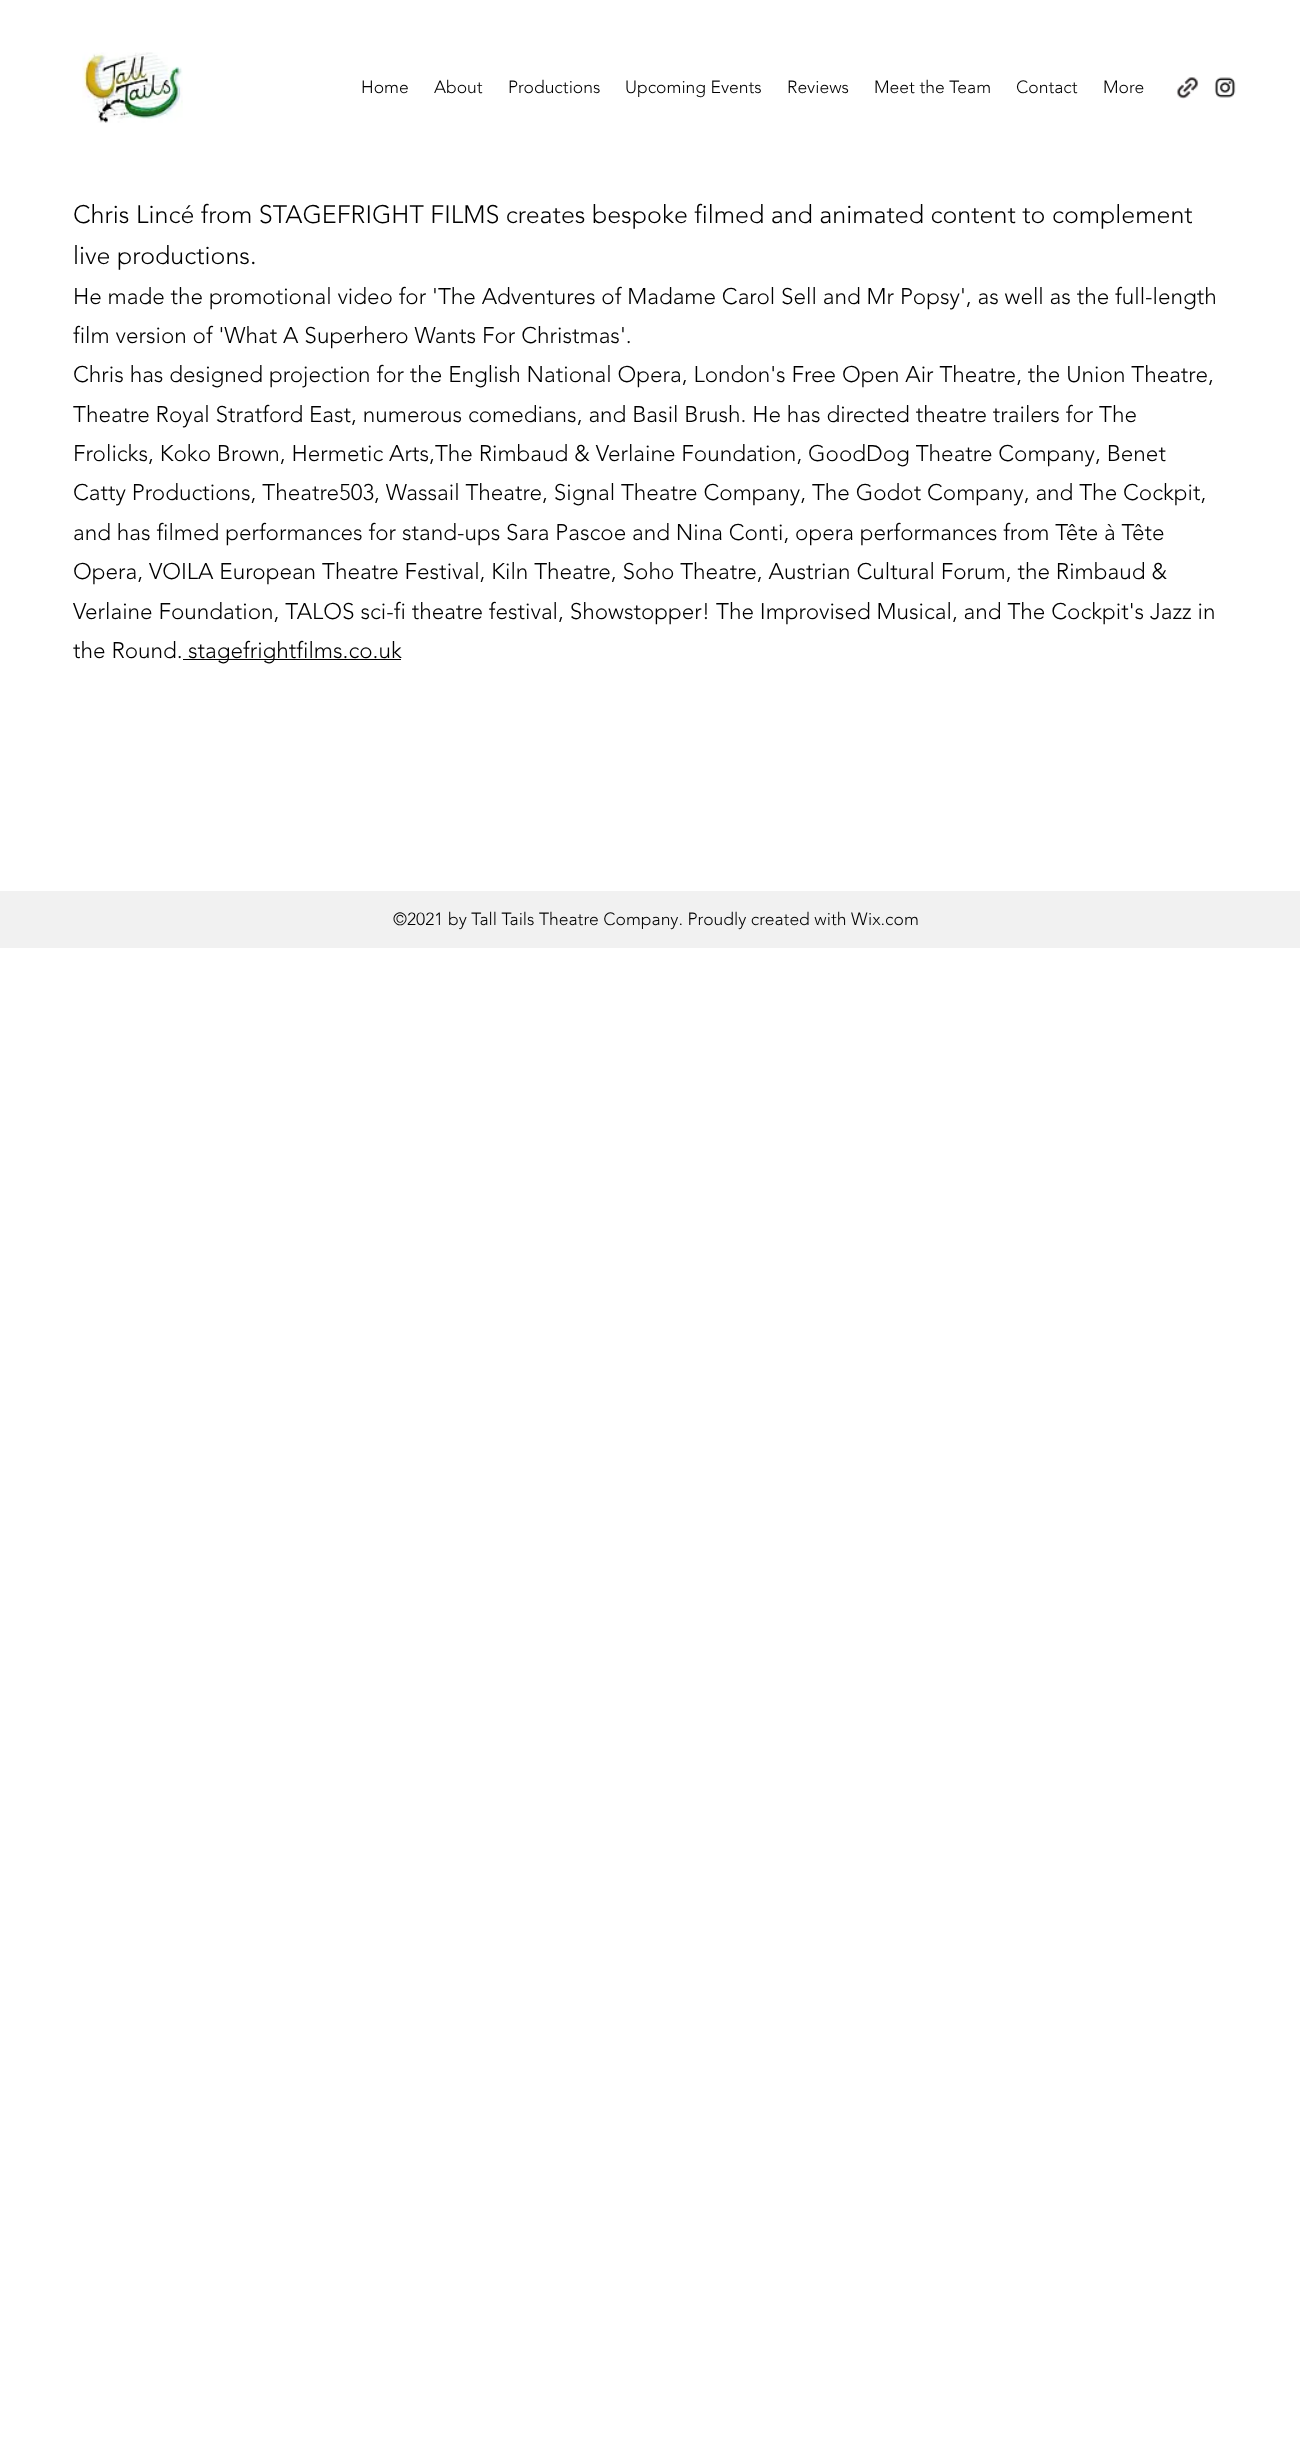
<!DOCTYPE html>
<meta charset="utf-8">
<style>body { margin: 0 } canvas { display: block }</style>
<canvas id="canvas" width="1300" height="2444"></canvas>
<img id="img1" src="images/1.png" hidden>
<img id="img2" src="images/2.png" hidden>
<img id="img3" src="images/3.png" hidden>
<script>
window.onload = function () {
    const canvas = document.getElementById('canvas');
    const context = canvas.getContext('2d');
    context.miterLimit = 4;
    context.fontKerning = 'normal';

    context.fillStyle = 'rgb(255, 255, 255)';
    context.fillRect(0, 0, 1300, 2444);
    context.drawImage(document.getElementById('img1'), 82, 52, 101, 71);
    context.drawImage(document.getElementById('img2'), 1176, 77, 23, 22);
    context.drawImage(document.getElementById('img3'), 1214, 77, 22, 21);
    context.fillStyle = 'rgb(0, 0, 0)';
    context.fillRect(183, 659, 218, 1);
    context.fillStyle = 'rgb(241, 241, 241)';
    context.fillRect(0, 891, 1300, 57);
    context.font = '300 17.5px "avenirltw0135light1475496"';
    context.fillStyle = 'rgb(0, 0, 0)';
    context.fillText('Home', 361, 93);
    context.fillText('About', 434, 93);
    context.fillText('Productions', 508, 93);
    context.fillText('Upcoming Events', 625, 93);
    context.fillText('Reviews', 787, 93);
    context.fillText('Meet the Team', 874, 93);
    context.fillText('Contact', 1016, 93);
    context.fillText('More', 1103, 93);
    context.font = '300 25px "avenirltw0135light1475496"';
    context.fillText('Chris Lincé from STAGEFRIGHT FILMS creates bespoke filmed and animated content to complement', 73, 223);
    context.fillText('live productions.', 73, 264);
    context.font = '300 22.5px "avenirltw0135light1475496"';
    context.fillText('He made the promotional video for \'The Adventures of Madame Carol Sell and Mr Popsy\', as well as the full-length', 73, 304);
    context.fillText('film version of \'What A Superhero Wants For Christmas\'.', 73, 343);
    context.fillText('Chris has designed projection for the English National Opera, London\'s Free Open Air Theatre, the Union Theatre,', 73, 382);
    context.fillText('Theatre Royal Stratford East, numerous comedians, and Basil Brush. He has directed theatre trailers for The', 73, 422);
    context.fillText('Frolicks, Koko Brown, Hermetic Arts,The Rimbaud & Verlaine Foundation, GoodDog Theatre Company, Benet', 73, 461);
    context.fillText('Catty Productions, Theatre503, Wassail Theatre, Signal Theatre Company, The Godot Company, and The Cockpit,', 73, 500);
    context.fillText('and has filmed performances for stand-ups Sara Pascoe and Nina Conti, opera performances from Tête à Tête', 73, 540);
    context.fillText('Opera, VOILA European Theatre Festival, Kiln Theatre, Soho Theatre, Austrian Cultural Forum, the Rimbaud &', 73, 579);
    context.fillText('Verlaine Foundation, TALOS sci-fi theatre festival, Showstopper! The Improvised Musical, and The Cockpit\'s Jazz in', 73, 619);
    context.fillText('the Round.', 73, 658);
    context.fillText('stagefrightfilms.co.uk', 188, 658);
    context.font = '300 17.5px "avenirltw0135light1475496"';
    context.fillText('©2021 by Tall Tails Theatre Company. Proudly created with Wix.com', 393, 925);
};
</script>
